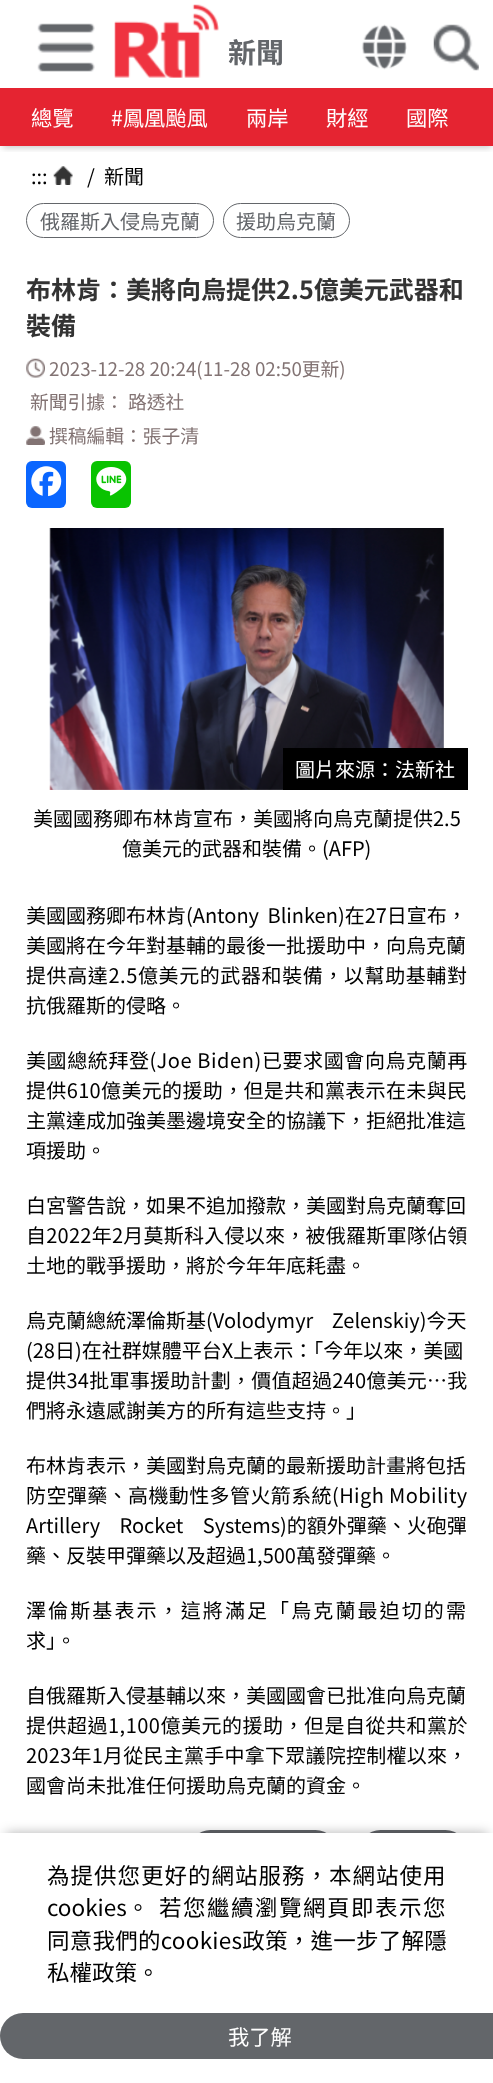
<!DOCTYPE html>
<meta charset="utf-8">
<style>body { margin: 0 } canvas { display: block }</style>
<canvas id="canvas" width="493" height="2083"></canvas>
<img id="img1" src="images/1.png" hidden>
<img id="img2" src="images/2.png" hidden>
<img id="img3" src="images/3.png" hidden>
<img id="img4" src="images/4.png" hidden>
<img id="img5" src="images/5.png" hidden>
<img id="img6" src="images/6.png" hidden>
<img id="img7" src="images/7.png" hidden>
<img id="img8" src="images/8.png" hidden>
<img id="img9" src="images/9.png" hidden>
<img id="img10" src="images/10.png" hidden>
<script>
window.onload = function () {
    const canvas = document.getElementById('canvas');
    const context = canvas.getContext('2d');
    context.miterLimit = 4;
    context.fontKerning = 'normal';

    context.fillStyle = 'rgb(255, 255, 255)';
    context.fillRect(0, 0, 493, 2083);
    context.save();
    context.beginPath();
    context.rect(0, 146, 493, 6);
    context.clip();
    context.fillStyle = 'rgba(0, 0, 0, 0.2)';
    context.filter = 'blur(3px)';
    context.beginPath();
    context.rect(3, 6, 488, 142);
    context.fill();
    context.filter = 'none';
    context.restore();
    context.drawImage(document.getElementById('img1'), 37, 23, 58, 49);
    context.drawImage(document.getElementById('img2'), 114, 4, 105, 74);
    context.drawImage(document.getElementById('img3'), 361, 24, 46, 46);
    context.drawImage(document.getElementById('img4'), 433, 24, 46, 47);
    context.fillStyle = 'rgb(229, 36, 49)';
    context.fillRect(0, 88, 493, 58);
    context.drawImage(document.getElementById('img5'), 53, 166, 20, 19);
    context.beginPath();
    context.roundRect(26.5, 203.5, 187, 34, 17);
    context.strokeStyle = 'rgb(99, 102, 106)';
    context.stroke();
    context.beginPath();
    context.roundRect(223.5, 203.5, 126, 34, 17);
    context.stroke();
    context.drawImage(document.getElementById('img6'), 26, 358, 19, 20);
    context.drawImage(document.getElementById('img7'), 26, 426, 19, 19);
    context.fillStyle = 'rgb(10, 102, 255)';
    context.beginPath();
    context.roundRect(26, 461, 40, 47, 6);
    context.fill();
    context.drawImage(document.getElementById('img8'), 31, 466, 31, 31);
    context.fillStyle = 'rgb(9, 195, 1)';
    context.beginPath();
    context.roundRect(91, 461, 40, 47, 6);
    context.fill();
    context.drawImage(document.getElementById('img9'), 96, 467, 31, 29);
    context.drawImage(document.getElementById('img10'), 49, 528, 395, 262);
    context.fillStyle = 'rgb(0, 0, 0)';
    context.fillRect(283, 748, 185, 42);
    context.fillStyle = 'rgb(99, 102, 106)';
    context.beginPath();
    context.roundRect(188, 1830, 150, 45, 22.5);
    context.fill();
    context.beginPath();
    context.roundRect(358, 1830, 110, 45, 22.5);
    context.fill();
    context.fillStyle = 'rgba(0, 0, 0, 0.3)';
    context.filter = 'blur(6px)';
    context.beginPath();
    context.rect(6, 1833, 482, 238);
    context.fill();
    context.filter = 'none';
    context.fillStyle = 'rgb(255, 255, 255)';
    context.fillRect(0, 1833, 493, 249);
    context.fillStyle = 'rgb(99, 102, 106)';
    context.beginPath();
    context.roundRect(0, 2013, 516, 46, 23);
    context.fill();
    context.font = 'bold 28px Noto Sans TC';
    context.fillText('新聞', 228, 63);
    context.font = '21.25px Noto Sans TC';
    context.fillStyle = 'rgb(255, 255, 255)';
    context.fillText('總覽', 31, 126);
    context.fillText('#鳳凰颱風', 111, 126);
    context.fillText('兩岸', 246, 126);
    context.fillText('財經', 326, 126);
    context.fillText('國際', 406, 126);
    context.font = '20px Noto Sans TC';
    context.fillStyle = 'rgb(0, 0, 0)';
    context.fillText(':::', 31, 184);
    context.fillText('/', 87, 184);
    context.fillText('新聞', 104, 184);
    context.fillStyle = 'rgb(99, 102, 106)';
    context.fillText('俄羅斯入侵烏克蘭', 40, 229);
    context.fillText('援助烏克蘭', 236, 229);
    context.font = 'bold 25px Noto Sans TC';
    context.fillStyle = 'rgb(51, 51, 51)';
    context.fillText('布林肯：美將向烏提供2.5億美元武器和', 26, 299);
    context.fillText('裝備', 26, 335);
    context.font = '18.75px Noto Sans TC';
    context.fillStyle = 'rgb(130, 115, 115)';
    context.fillText('2023-12-28 20:24(11-28 02:50更新)', 49, 376);
    context.fillText('新聞引據： 路透社', 30, 409);
    context.fillText('撰稿編輯：張子清', 49, 443);
    context.font = '20px Noto Sans TC';
    context.fillStyle = 'rgb(255, 255, 255)';
    context.fillText('圖片來源：法新社', 295, 777);
    context.fillStyle = 'rgb(0, 0, 0)';
    context.fillText('美國國務卿布林肯宣布，美國將向烏克蘭提供2.5', 33, 826);
    context.fillText('億美元的武器和裝備。(AFP)', 122, 856);
    context.wordSpacing = '4px';
    context.fillText('美國國務卿布林肯(Antony Blinken)在27日宣布，', 26, 923);
    context.wordSpacing = '0px';
    context.fillText('美國將在今年對基輔的最後一批援助中，向烏克蘭', 26, 953);
    context.letterSpacing = '0.6px';
    context.fillText('提供高達2.5億美元的武器和裝備，以幫助基輔對', 26, 983);
    context.letterSpacing = '0px';
    context.fillText('抗俄羅斯的侵略。', 26, 1013);
    context.letterSpacing = '0.6px';
    context.fillText('美國總統拜登(Joe Biden)已要求國會向烏克蘭再', 26, 1068);
    context.letterSpacing = '0.35px';
    context.fillText('提供610億美元的援助，但是共和黨表示在未與民', 26, 1098);
    context.letterSpacing = '0px';
    context.fillText('主黨達成加強美墨邊境安全的協議下，拒絕批准這', 26, 1128);
    context.fillText('項援助。', 26, 1158);
    context.fillText('白宮警告說，如果不追加撥款，美國對烏克蘭奪回', 26, 1213);
    context.letterSpacing = '0.25px';
    context.fillText('自2022年2月莫斯科入侵以來，被俄羅斯軍隊佔領', 26, 1243);
    context.letterSpacing = '0px';
    context.fillText('土地的戰爭援助，將於今年年底耗盡。', 26, 1273);
    context.wordSpacing = '14px';
    context.fillText('烏克蘭總統澤倫斯基(Volodymyr Zelenskiy)今天', 26, 1328);
    context.wordSpacing = '0px';
    context.fillText('(28日)在社群媒體平台X上表示：「今年以來，美國', 26, 1358);
    context.letterSpacing = '0.25px';
    context.fillText('提供34批軍事援助計劃，價值超過240億美元…我', 26, 1388);
    context.letterSpacing = '0px';
    context.fillText('們將永遠感謝美方的所有這些支持。」', 26, 1418);
    context.fillText('布林肯表示，美國對烏克蘭的最新援助計畫將包括', 26, 1473);
    context.letterSpacing = '0.4px';
    context.fillText('防空彈藥、高機動性多管火箭系統(High Mobility', 26, 1503);
    context.letterSpacing = '0px';
    context.wordSpacing = '15px';
    context.fillText('Artillery Rocket Systems)的額外彈藥、火砲彈', 26, 1533);
    context.wordSpacing = '0px';
    context.fillText('藥、反裝甲彈藥以及超過1,500萬發彈藥。', 26, 1563);
    context.letterSpacing = '2.1px';
    context.fillText('澤倫斯基表示，這將滿足「烏克蘭最迫切的需', 26, 1618);
    context.letterSpacing = '0px';
    context.fillText('求」。', 26, 1648);
    context.fillText('自俄羅斯入侵基輔以來，美國國會已批准向烏克蘭', 26, 1703);
    context.letterSpacing = '0.5px';
    context.fillText('提供超過1,100億美元的援助，但是自從共和黨於', 26, 1733);
    context.letterSpacing = '0.25px';
    context.fillText('2023年1月從民主黨手中拿下眾議院控制權以來，', 26, 1763);
    context.letterSpacing = '0px';
    context.fillText('國會尚未批准任何援助烏克蘭的資金。', 26, 1793);
    context.letterSpacing = '1px';
    context.font = '22.5px Noto Sans TC';
    context.fillText('為提供您更好的網站服務，本網站使用', 47, 1884);
    context.letterSpacing = '0px';
    context.fillText('cookies。', 47, 1916);
    context.letterSpacing = '1.5px';
    context.fillText('若您繼續瀏覽網頁即表示您', 159, 1916);
    context.letterSpacing = '0.25px';
    context.fillText('同意我們的cookies政策，進一步了解隱', 47, 1949);
    context.letterSpacing = '0px';
    context.fillText('私權政策。', 47, 1981);
    context.font = '21.25px Noto Sans TC';
    context.fillStyle = 'rgb(255, 255, 255)';
    context.fillText('我了解', 228, 2045);
};
</script>
